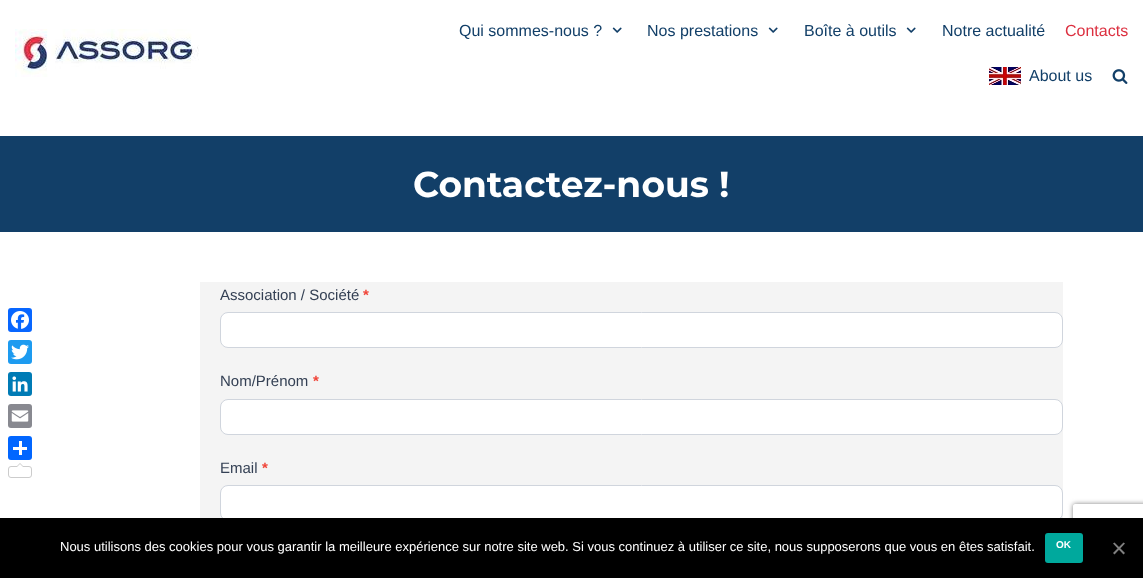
<!DOCTYPE html>
<meta charset="utf-8">
<style>body { margin: 0 } canvas { display: block }</style>
<canvas id="canvas" width="1143" height="578"></canvas>
<img id="img1" src="images/1.png" hidden>
<img id="img2" src="images/2.png" hidden>
<img id="img3" src="images/3.png" hidden>
<img id="img4" src="images/4.png" hidden>
<img id="img5" src="images/5.png" hidden>
<img id="img6" src="images/6.png" hidden>
<img id="img7" src="images/7.png" hidden>
<img id="img8" src="images/8.png" hidden>
<script>
window.onload = function () {
    const canvas = document.getElementById('canvas');
    const context = canvas.getContext('2d');
    context.miterLimit = 4;
    context.fontKerning = 'normal';

    context.fillStyle = 'rgb(255, 255, 255)';
    context.fillRect(0, 0, 1143, 578);
    context.fillStyle = 'rgb(8, 102, 255)';
    context.beginPath();
    context.roundRect(8, 308, 24, 24, 3);
    context.fill();
    context.drawImage(document.getElementById('img1'), 11, 311, 18, 18);
    context.fillStyle = 'rgb(29, 155, 240)';
    context.beginPath();
    context.roundRect(8, 340, 24, 24, 3);
    context.fill();
    context.drawImage(document.getElementById('img2'), 11, 344, 18, 16);
    context.fillStyle = 'rgb(0, 123, 181)';
    context.beginPath();
    context.roundRect(8, 372, 24, 24, 3);
    context.fill();
    context.drawImage(document.getElementById('img3'), 12, 376, 16, 16);
    context.fillStyle = 'rgb(136, 137, 144)';
    context.beginPath();
    context.roundRect(8, 404, 24, 24, 3);
    context.fill();
    context.drawImage(document.getElementById('img4'), 11, 410, 18, 12);
    context.fillStyle = 'rgb(1, 102, 255)';
    context.beginPath();
    context.roundRect(8, 436, 24, 24, 3);
    context.fill();
    context.fillStyle = 'rgb(255, 255, 255)';
    context.fillRect(19, 441, 3, 14);
    context.fillRect(13, 447, 14, 3);
    context.beginPath();
    context.roundRect(8.5, 466.5, 23, 11, 2.5);
    context.strokeStyle = 'rgb(204, 204, 204)';
    context.stroke();
    context.fillStyle = 'rgb(204, 204, 204)';
    context.beginPath();
    context.moveTo(24, 467);
    context.lineTo(16, 467);
    context.lineTo(20, 463);
    context.closePath();
    context.fill();
    context.fillStyle = 'rgb(255, 255, 255)';
    context.beginPath();
    context.moveTo(24, 468);
    context.lineTo(16, 468);
    context.lineTo(20, 464);
    context.closePath();
    context.fill();
    context.drawImage(document.getElementById('img5'), 15, 29, 184, 48);
    context.drawImage(document.getElementById('img6'), 612, 27, 10, 6);
    context.drawImage(document.getElementById('img6'), 768, 27, 10, 6);
    context.drawImage(document.getElementById('img6'), 906, 27, 10, 6);
    context.drawImage(document.getElementById('img7'), 989, 67, 32, 18);
    context.drawImage(document.getElementById('img8'), 1112, 69, 16, 15);
    context.fillStyle = 'rgb(18, 63, 104)';
    context.fillRect(0, 136, 1143, 96);
    context.fillStyle = 'rgb(244, 244, 244)';
    context.fillRect(200, 282, 863, 236);
    context.fillStyle = 'rgb(255, 255, 255)';
    context.beginPath();
    context.roundRect(220.5, 312.5, 842, 35, 7.5);
    context.fill();
    context.strokeStyle = 'rgb(208, 213, 221)';
    context.stroke();
    context.beginPath();
    context.roundRect(220.5, 399.5, 842, 35, 7.5);
    context.fill();
    context.stroke();
    context.beginPath();
    context.roundRect(220.5, 485.5, 842, 35, 7.5);
    context.fill();
    context.stroke();
    context.save();
    context.beginPath();
    context.moveTo(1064, 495);
    context.lineTo(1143, 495);
    context.lineTo(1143, 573);
    context.lineTo(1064, 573);
    context.closePath();
    context.moveTo(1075, 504);
    context.lineTo(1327, 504);
    context.bezierCurveTo(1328, 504, 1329, 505, 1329, 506);
    context.lineTo(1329, 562);
    context.bezierCurveTo(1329, 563, 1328, 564, 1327, 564);
    context.lineTo(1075, 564);
    context.bezierCurveTo(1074, 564, 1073, 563, 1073, 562);
    context.lineTo(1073, 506);
    context.bezierCurveTo(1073, 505, 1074, 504, 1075, 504);
    context.closePath();
    context.clip('evenodd');
    context.fillStyle = 'rgb(128, 128, 128)';
    context.filter = 'blur(2.5px)';
    context.beginPath();
    context.roundRect(1073, 504, 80, 60, 2);
    context.fill();
    context.filter = 'none';
    context.restore();
    context.fillStyle = 'rgb(0, 0, 0)';
    context.fillRect(0, 518, 1143, 60);
    context.fillStyle = 'rgb(0, 169, 157)';
    context.beginPath();
    context.roundRect(1045, 533, 38, 30, 3);
    context.fill();
    context.fillStyle = 'rgb(128, 128, 128)';
    context.beginPath();
    context.moveTo(1123.5, 542.5);
    context.lineTo(1125, 543.5);
    context.lineTo(1114.5, 554.5);
    context.lineTo(1113, 553);
    context.closePath();
    context.fill();
    context.beginPath();
    context.moveTo(1113, 543.5);
    context.lineTo(1114.5, 542.5);
    context.lineTo(1125, 553);
    context.lineTo(1123.5, 554.5);
    context.closePath();
    context.fill();
    context.font = '16px Liberation Sans';
    context.fillStyle = 'rgb(18, 63, 104)';
    context.fillText('Qui sommes-nous ?', 459, 36);
    context.fillText('Nos prestations', 647, 36);
    context.fillText('Boîte à outils', 804, 36);
    context.fillText('Notre actualité', 942, 36);
    context.fillStyle = 'rgb(220, 48, 64)';
    context.fillText('Contacts', 1065, 36);
    context.fillStyle = 'rgb(18, 63, 104)';
    context.fillText('About us', 1029, 81);
    context.font = 'bold 36px Montserrat';
    context.fillStyle = 'rgb(255, 255, 255)';
    context.fillText('Contactez-nous !', 413, 197);
    context.font = '15px Liberation Sans';
    context.fillStyle = 'rgb(52, 64, 84)';
    context.fillText('Association / Société', 220, 300);
    context.font = 'bold 15px Liberation Sans';
    context.fillStyle = 'rgb(240, 68, 56)';
    context.fillText('*', 363, 300);
    context.font = '15px Liberation Sans';
    context.fillStyle = 'rgb(52, 64, 84)';
    context.fillText('Nom/Prénom', 220, 386);
    context.font = 'bold 15px Liberation Sans';
    context.fillStyle = 'rgb(240, 68, 56)';
    context.fillText('*', 313, 386);
    context.font = '15px Liberation Sans';
    context.fillStyle = 'rgb(52, 64, 84)';
    context.fillText('Email', 220, 473);
    context.font = 'bold 15px Liberation Sans';
    context.fillStyle = 'rgb(240, 68, 56)';
    context.fillText('*', 262, 473);
    context.font = '13px Liberation Sans';
    context.fillStyle = 'rgb(255, 255, 255)';
    context.fillText('Nous utilisons des cookies pour vous garantir la meilleure expérience sur notre site web. Si vous continuez à utiliser ce site, nous supposerons que vous en êtes satisfait.', 60, 551);
    context.font = 'bold 10px Liberation Sans';
    context.fillText('OK', 1056, 548);
};
</script>
